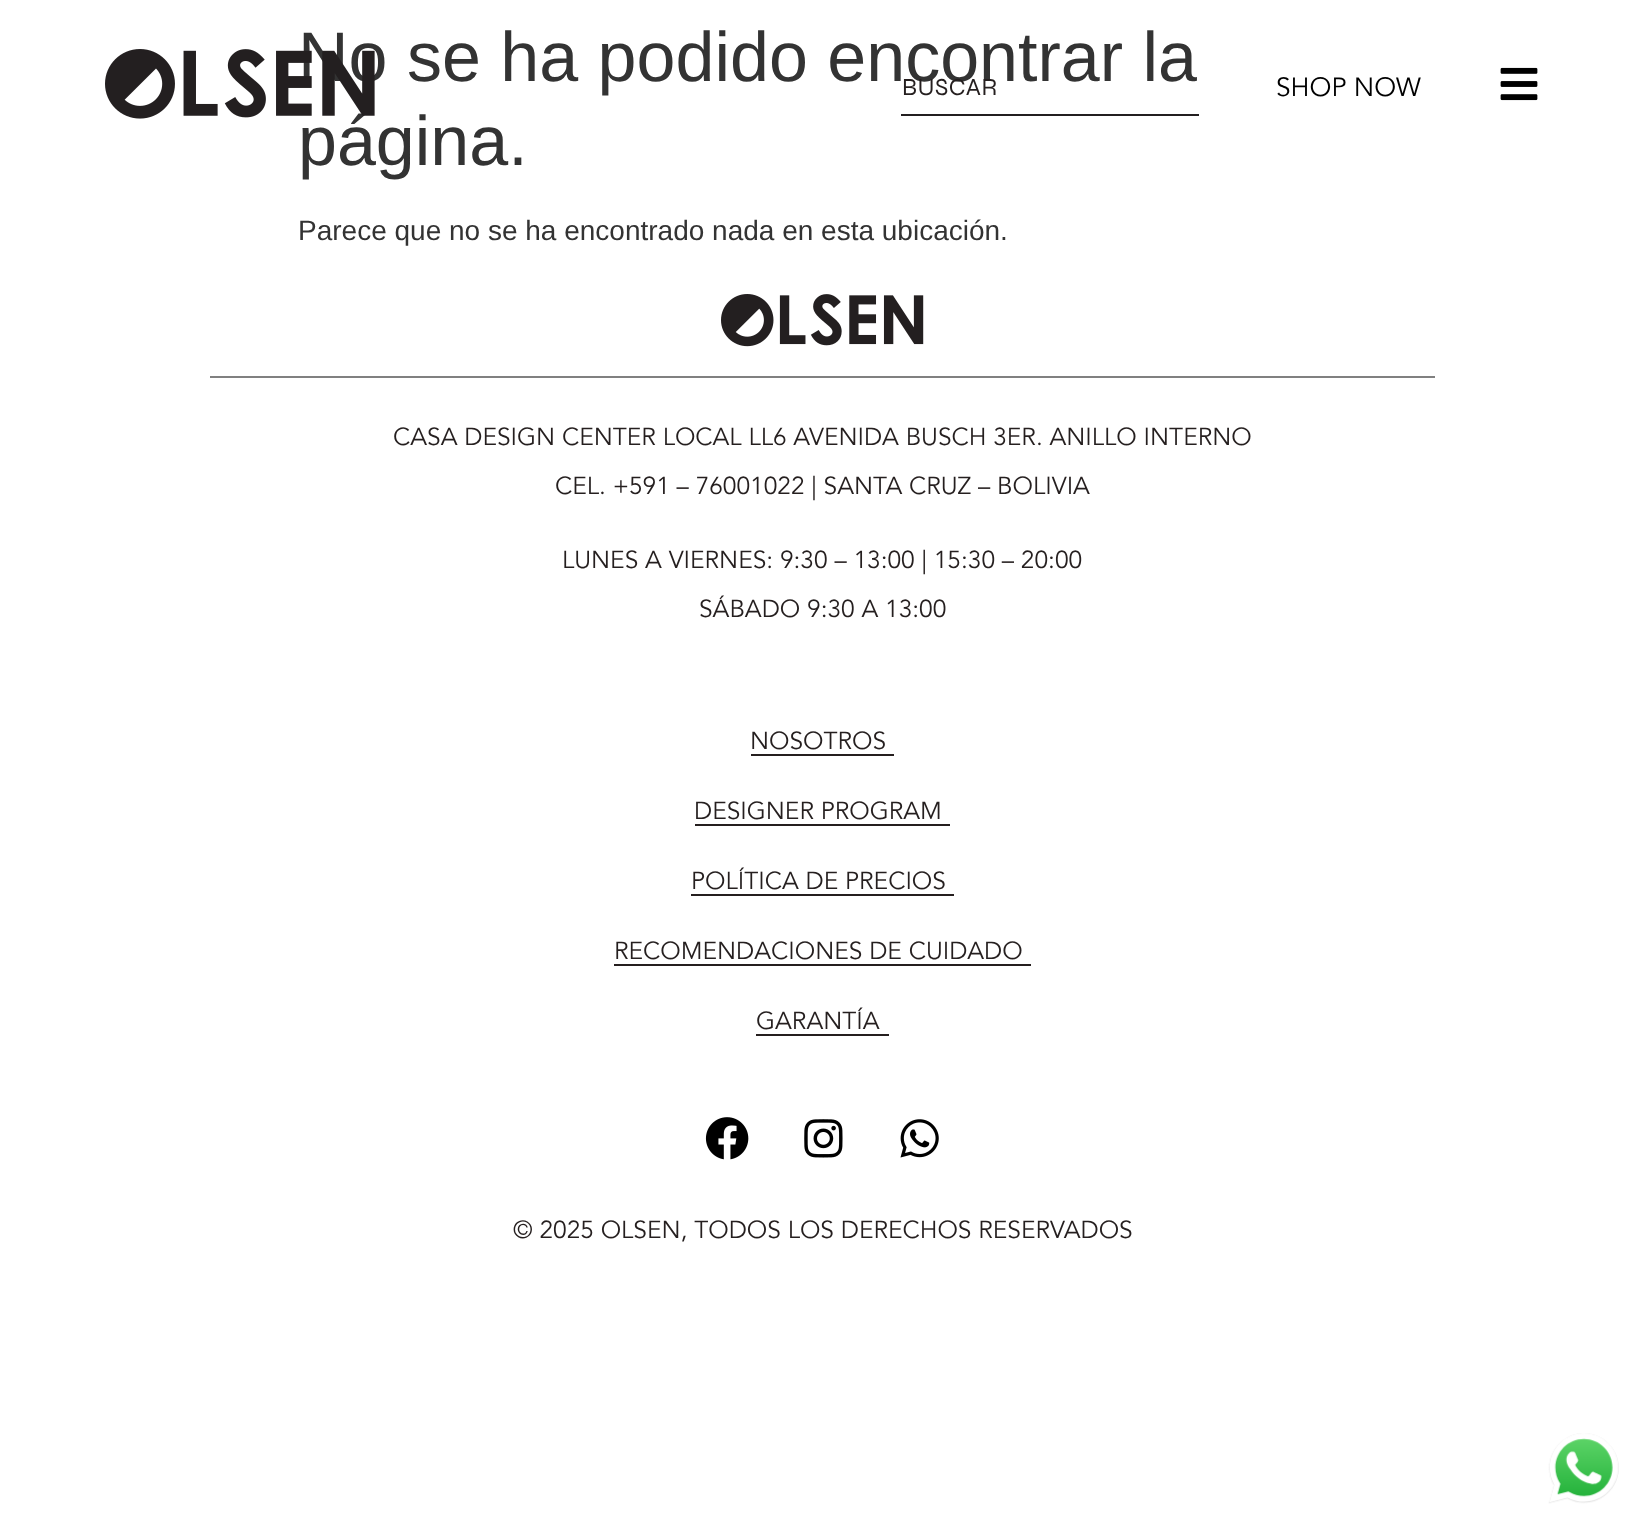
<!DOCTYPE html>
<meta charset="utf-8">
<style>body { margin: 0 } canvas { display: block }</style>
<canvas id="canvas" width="1644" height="1528"></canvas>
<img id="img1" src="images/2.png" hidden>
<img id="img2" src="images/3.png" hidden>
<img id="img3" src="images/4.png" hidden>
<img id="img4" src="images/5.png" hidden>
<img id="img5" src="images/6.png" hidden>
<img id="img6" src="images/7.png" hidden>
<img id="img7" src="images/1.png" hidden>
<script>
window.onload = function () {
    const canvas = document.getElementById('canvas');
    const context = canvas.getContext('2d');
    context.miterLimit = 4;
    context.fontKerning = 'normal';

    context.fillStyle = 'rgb(255, 255, 255)';
    context.fillRect(0, 0, 1644, 1528);
    context.fillStyle = 'rgb(35, 31, 32)';
    context.fillRect(901, 114, 298, 2);
    context.drawImage(document.getElementById('img1'), 1500, 67, 38, 34);
    context.fillStyle = 'rgb(128, 128, 128)';
    context.fillRect(210, 376, 1225, 2);
    context.drawImage(document.getElementById('img2'), 721, 294, 203, 53);
    context.fillStyle = 'rgb(37, 31, 31)';
    context.fillRect(751, 754, 143, 2);
    context.fillRect(695, 824, 255, 2);
    context.fillRect(691, 894, 263, 2);
    context.fillRect(614, 964, 417, 2);
    context.fillRect(756, 1034, 133, 2);
    context.drawImage(document.getElementById('img3'), 705, 1117, 44, 43);
    context.drawImage(document.getElementById('img4'), 804, 1119, 39, 39);
    context.drawImage(document.getElementById('img5'), 900, 1119, 39, 39);
    context.drawImage(document.getElementById('img6'), 1548, 1433, 71, 71);
    context.font = '70px Liberation Sans';
    context.fillStyle = 'rgb(51, 51, 51)';
    context.fillText('No se ha podido encontrar la', 298, 81);
    context.fillText('página.', 298, 165);
    context.font = '28px Liberation Sans';
    context.fillText('Parece que no se ha encontrado nada en esta ubicación.', 298, 240);
    context.drawImage(document.getElementById('img7'), 105, 49, 270, 70);
    context.letterSpacing = '0.5px';
    context.font = '24.5px Syne';
    context.fillStyle = 'rgb(37, 31, 31)';
    context.fillText('BUSCAR', 902, 95);
    context.letterSpacing = '0px';
    context.font = '26.25px Avenir';
    context.fillStyle = 'rgb(0, 0, 0)';
    context.fillText('SHOP NOW', 1276, 96);
    context.font = '24.5px Avenir';
    context.fillStyle = 'rgb(37, 31, 31)';
    context.fillText('CASA DESIGN CENTER LOCAL LL6 AVENIDA BUSCH 3ER. ANILLO INTERNO', 393, 445);
    context.fillText('CEL. +591 – 76001022 | SANTA CRUZ – BOLIVIA', 555, 494);
    context.fillText('LUNES A VIERNES: 9:30 – 13:00 | 15:30 – 20:00', 562, 568);
    context.fillText('SÁBADO 9:30 A 13:00', 699, 617);
    context.fillText('NOSOTROS', 750, 749);
    context.fillText('DESIGNER PROGRAM', 694, 819);
    context.fillText('POLÍTICA DE PRECIOS', 691, 889);
    context.fillText('RECOMENDACIONES DE CUIDADO', 614, 959);
    context.fillText('GARANTÍA', 756, 1029);
    context.fillText('© 2025 OLSEN, TODOS LOS DERECHOS RESERVADOS', 513, 1238);
};
</script>
